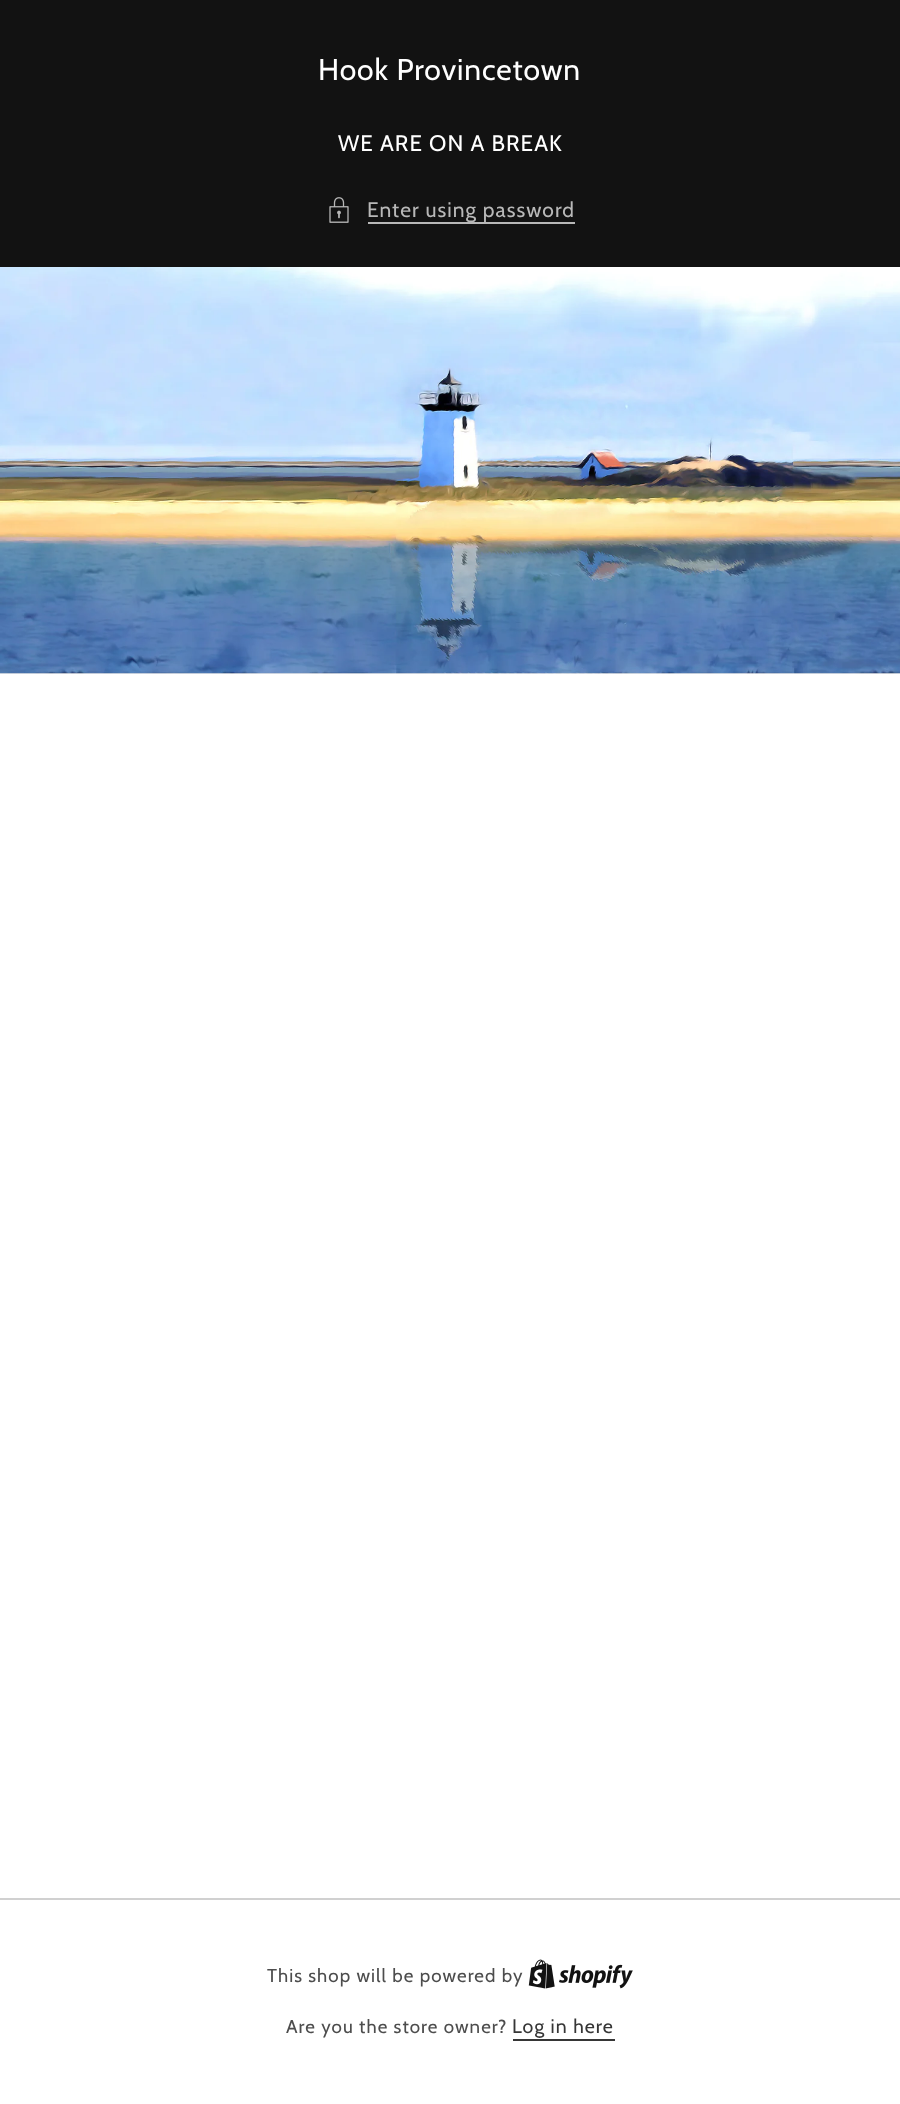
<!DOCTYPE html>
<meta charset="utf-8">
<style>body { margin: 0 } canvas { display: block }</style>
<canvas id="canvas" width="900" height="2104"></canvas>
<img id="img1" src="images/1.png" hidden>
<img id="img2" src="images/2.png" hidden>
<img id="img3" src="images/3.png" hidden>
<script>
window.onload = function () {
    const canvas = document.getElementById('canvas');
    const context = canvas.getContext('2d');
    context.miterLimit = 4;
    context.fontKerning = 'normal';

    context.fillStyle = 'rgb(255, 255, 255)';
    context.fillRect(0, 0, 900, 2104);
    context.fillStyle = 'rgb(18, 18, 18)';
    context.fillRect(0, 0, 900, 267);
    context.drawImage(document.getElementById('img1'), 329, 197, 20, 26);
    context.fillStyle = 'rgb(184, 184, 184)';
    context.fillRect(368, 222, 207, 2);
    context.fillStyle = 'rgb(232, 232, 232)';
    context.fillRect(0, 673, 900, 1);
    context.drawImage(document.getElementById('img2'), 0, 267, 900, 407);
    context.fillStyle = 'rgb(208, 208, 208)';
    context.fillRect(0, 1898, 900, 2);
    context.drawImage(document.getElementById('img3'), 528, 1959, 105, 30);
    context.fillStyle = 'rgb(54, 54, 54)';
    context.fillRect(513, 2039, 102, 2);
    context.letterSpacing = '0.9px';
    context.font = '30px Cabin';
    context.fillStyle = 'rgb(255, 255, 255)';
    context.fillText('Hook Provincetown', 318, 80);
    context.letterSpacing = '1.05px';
    context.font = '22.5px Cabin';
    context.fillText('WE ARE ON A BREAK', 338, 151);
    context.font = '21px Cabin';
    context.fillStyle = 'rgb(184, 184, 184)';
    context.fillText('Enter using password', 367, 217);
    context.font = '18.75px Cabin';
    context.fillStyle = 'rgb(77, 77, 77)';
    context.fillText('This shop will be powered by', 267, 1982);
    context.fillText('Are you the store owner?', 286, 2033);
    context.font = '19.5px Cabin';
    context.fillStyle = 'rgb(54, 54, 54)';
    context.fillText('Log in here', 512, 2033);
};
</script>
